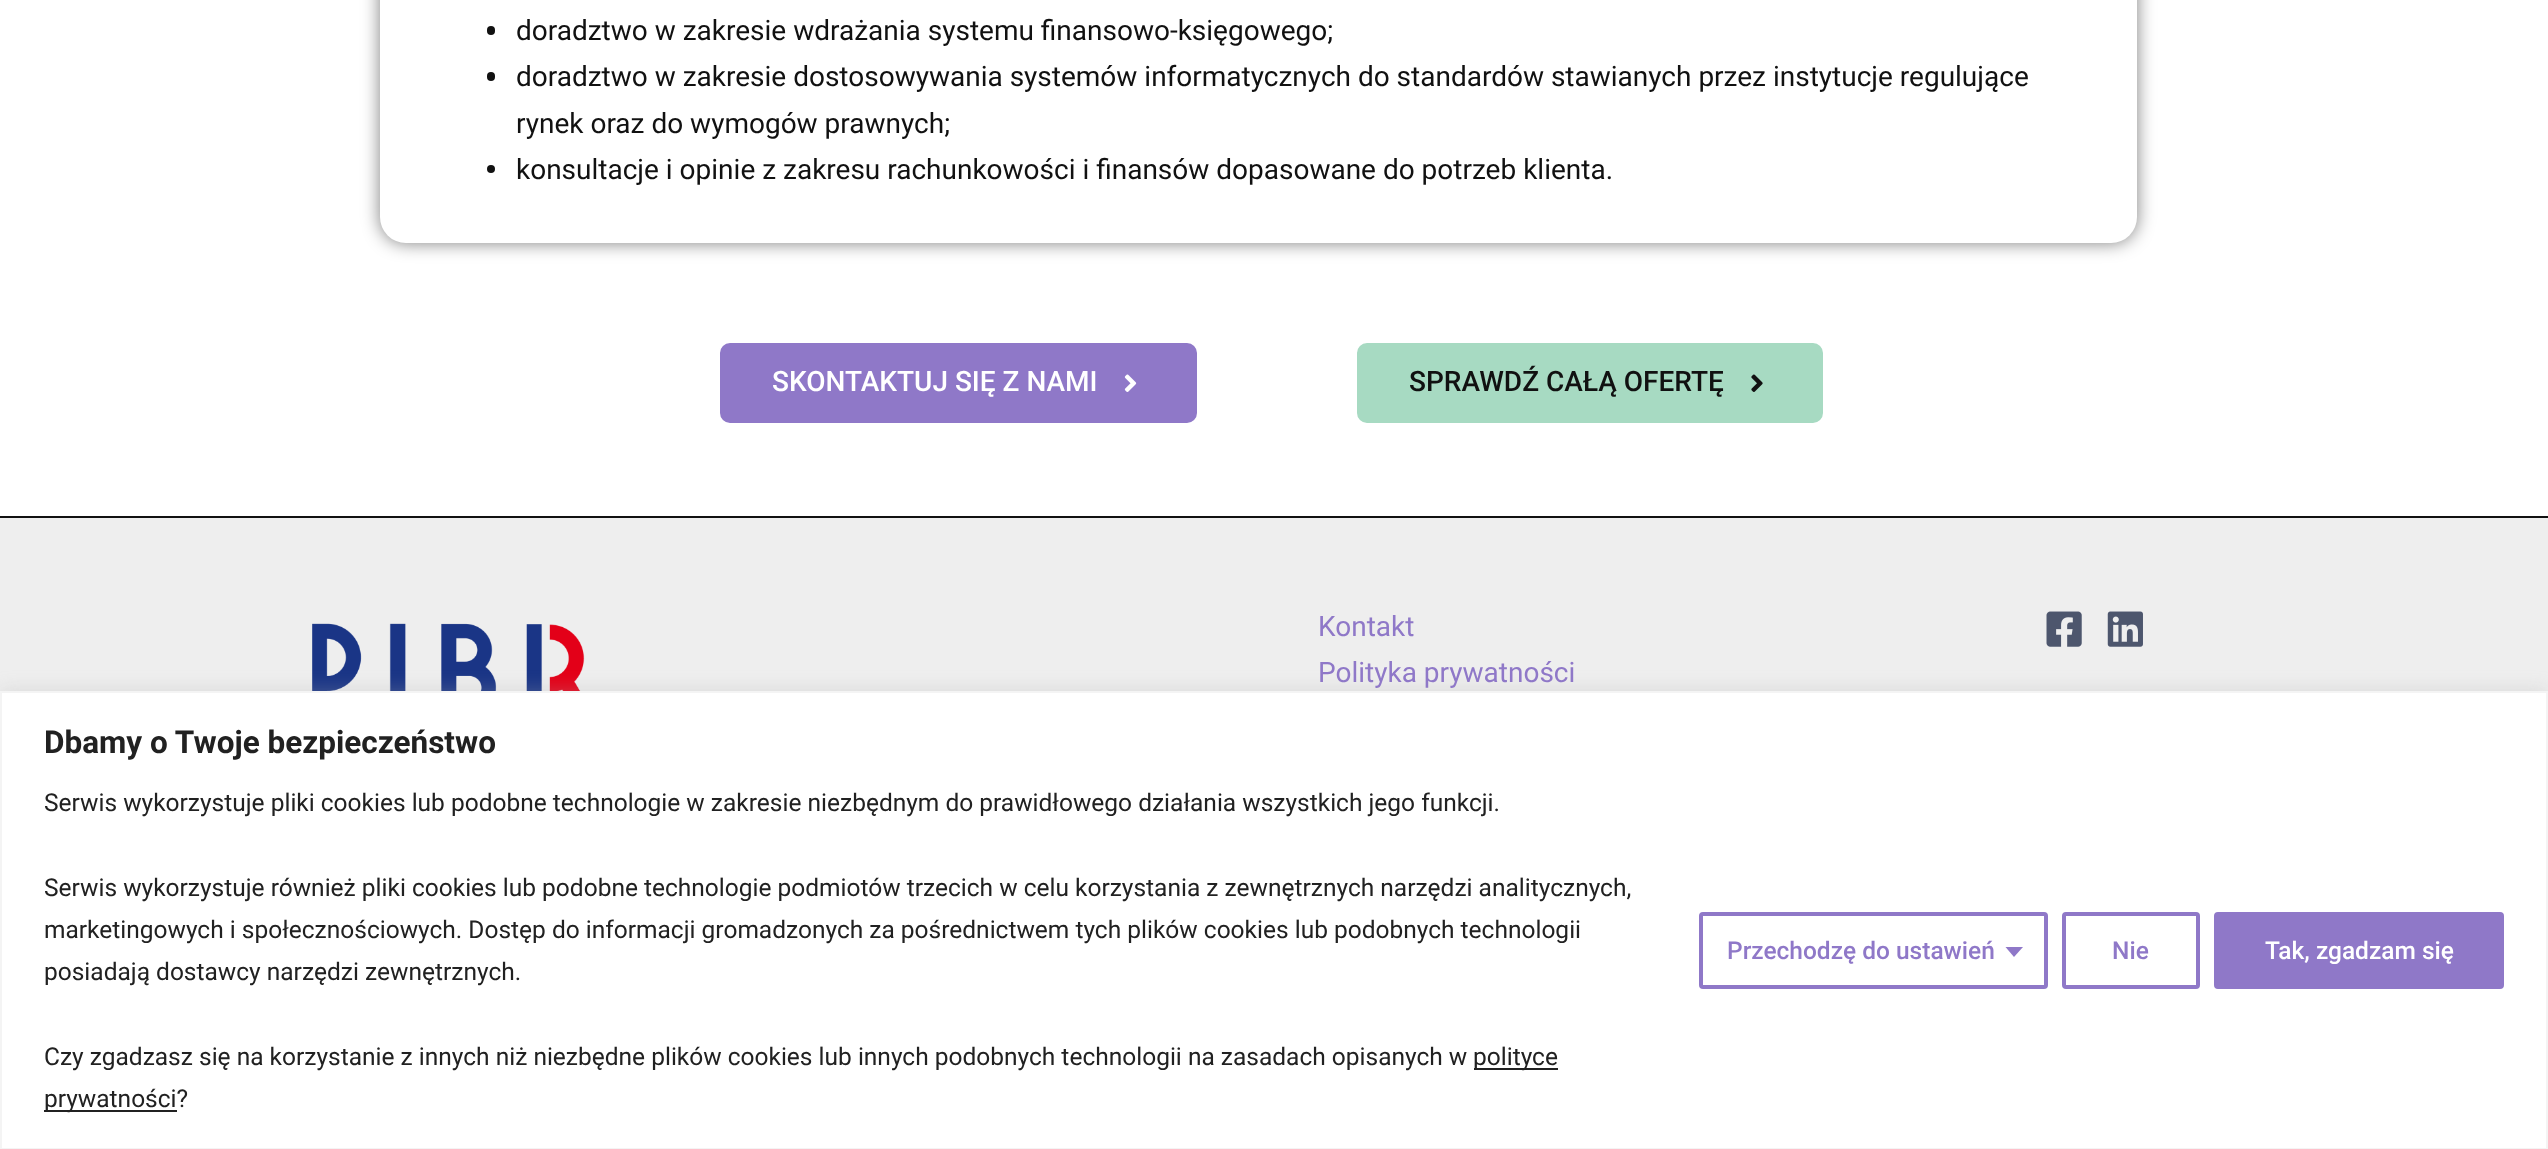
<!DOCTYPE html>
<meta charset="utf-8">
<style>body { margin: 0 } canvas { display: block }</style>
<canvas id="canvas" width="2548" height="1149"></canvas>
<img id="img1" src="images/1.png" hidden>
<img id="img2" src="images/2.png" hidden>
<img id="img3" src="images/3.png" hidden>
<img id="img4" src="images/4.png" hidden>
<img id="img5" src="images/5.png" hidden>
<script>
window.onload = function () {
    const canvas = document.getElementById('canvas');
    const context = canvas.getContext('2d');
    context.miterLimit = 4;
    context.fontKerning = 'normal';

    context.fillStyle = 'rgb(255, 255, 255)';
    context.fillRect(0, 0, 2548, 1149);
    context.fillStyle = 'rgba(0, 0, 0, 0.5)';
    context.filter = 'blur(9px)';
    context.beginPath();
    context.roundRect(380, -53, 1757, 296, 26);
    context.fill();
    context.filter = 'none';
    context.fillStyle = 'rgb(255, 255, 255)';
    context.beginPath();
    context.roundRect(380, -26, 1757, 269, 26);
    context.fill();
    context.fillStyle = 'rgb(17, 17, 17)';
    context.beginPath();
    context.roundRect(487, 26, 8, 9, 4);
    context.fill();
    context.beginPath();
    context.roundRect(487, 72, 8, 9, 4);
    context.fill();
    context.beginPath();
    context.arc(491, 169, 4, 0, 2 * Math.PI);
    context.fill();
    context.fillStyle = 'rgb(143, 120, 200)';
    context.beginPath();
    context.roundRect(719, 342, 479, 82, 11);
    context.fill();
    context.strokeStyle = 'rgb(255, 255, 255)';
    context.lineWidth = 2;
    context.stroke();
    context.drawImage(document.getElementById('img1'), 1124, 374, 13, 18);
    context.fillStyle = 'rgb(167, 218, 194)';
    context.beginPath();
    context.roundRect(1356, 342, 468, 82, 11);
    context.fill();
    context.stroke();
    context.drawImage(document.getElementById('img2'), 1751, 374, 12, 18);
    context.fillStyle = 'rgb(238, 238, 238)';
    context.fillRect(0, 518, 2548, 173);
    context.fillStyle = 'rgb(17, 17, 17)';
    context.fillRect(0, 516, 2548, 2);
    context.drawImage(document.getElementById('img3'), 312, 623, 273, 68);
    context.drawImage(document.getElementById('img4'), 2046, 611, 36, 36);
    context.drawImage(document.getElementById('img5'), 2107, 611, 36, 36);
    context.fillStyle = 'rgba(172, 171, 171, 0.3)';
    context.filter = 'blur(9px)';
    context.beginPath();
    context.rect(0, 690, 2548, 458);
    context.fill();
    context.filter = 'none';
    context.fillStyle = 'rgb(255, 255, 255)';
    context.beginPath();
    context.rect(1, 692, 2546, 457);
    context.fill();
    context.strokeStyle = 'rgb(244, 244, 244)';
    context.stroke();
    context.fillStyle = 'rgb(33, 33, 33)';
    context.fillRect(1474, 1068, 84, 2);
    context.fillRect(44, 1110, 133, 2);
    context.beginPath();
    context.roundRect(1701, 914, 345, 73, 2);
    context.strokeStyle = 'rgb(143, 120, 200)';
    context.lineWidth = 4;
    context.stroke();
    context.fillStyle = 'rgb(143, 120, 200)';
    context.beginPath();
    context.moveTo(2005.5, 947);
    context.lineTo(2023, 947);
    context.lineTo(2014, 957);
    context.closePath();
    context.fill();
    context.beginPath();
    context.roundRect(2064, 914, 134, 73, 2);
    context.stroke();
    context.beginPath();
    context.roundRect(2216, 914, 286, 73, 2);
    context.fill();
    context.stroke();
    context.font = '28px Roboto';
    context.fillStyle = 'rgb(17, 17, 17)';
    context.fillText('doradztwo w zakresie wdrażania systemu finansowo-księgowego;', 516, 40);
    context.fillText('doradztwo w zakresie dostosowywania systemów informatycznych do standardów stawianych przez instytucje regulujące', 516, 86);
    context.fillText('rynek oraz do wymogów prawnych;', 516, 133);
    context.fillText('konsultacje i opinie z zakresu rachunkowości i finansów dopasowane do potrzeb klienta.', 516, 179);
    context.font = '500 28px Roboto';
    context.fillStyle = 'rgb(255, 255, 255)';
    context.fillText('SKONTAKTUJ SIĘ Z NAMI', 772, 391);
    context.fillStyle = 'rgb(17, 17, 17)';
    context.fillText('SPRAWDŹ CAŁĄ OFERTĘ', 1409, 391);
    context.font = '28px Roboto';
    context.fillStyle = 'rgb(143, 120, 200)';
    context.fillText('Kontakt', 1318, 636);
    context.fillText('Polityka prywatności', 1318, 682);
    context.font = 'bold 31.5px Roboto';
    context.fillStyle = 'rgb(33, 33, 33)';
    context.fillText('Dbamy o Twoje bezpieczeństwo', 44, 753);
    context.font = '24.5px Roboto';
    context.fillText('Serwis wykorzystuje pliki cookies lub podobne technologie w zakresie niezbędnym do prawidłowego działania wszystkich jego funkcji.', 44, 811);
    context.fillText('Serwis wykorzystuje również pliki cookies lub podobne technologie podmiotów trzecich w celu korzystania z zewnętrznych narzędzi analitycznych,', 44, 896);
    context.fillText('marketingowych i społecznościowych. Dostęp do informacji gromadzonych za pośrednictwem tych plików cookies lub podobnych technologii', 44, 938);
    context.fillText('posiadają dostawcy narzędzi zewnętrznych.', 44, 980);
    context.fillText('Czy zgadzasz się na korzystanie z innych niż niezbędne plików cookies lub innych podobnych technologii na zasadach opisanych w', 44, 1065);
    context.fillText('polityce', 1473, 1065);
    context.fillText('prywatności?', 44, 1107);
    context.font = '500 24.5px Roboto';
    context.fillStyle = 'rgb(143, 120, 200)';
    context.fillText('Przechodzę do ustawień', 1727, 959);
    context.fillText('Nie', 2112, 959);
    context.fillStyle = 'rgb(255, 255, 255)';
    context.fillText('Tak, zgadzam się', 2265, 959);
};
</script>
